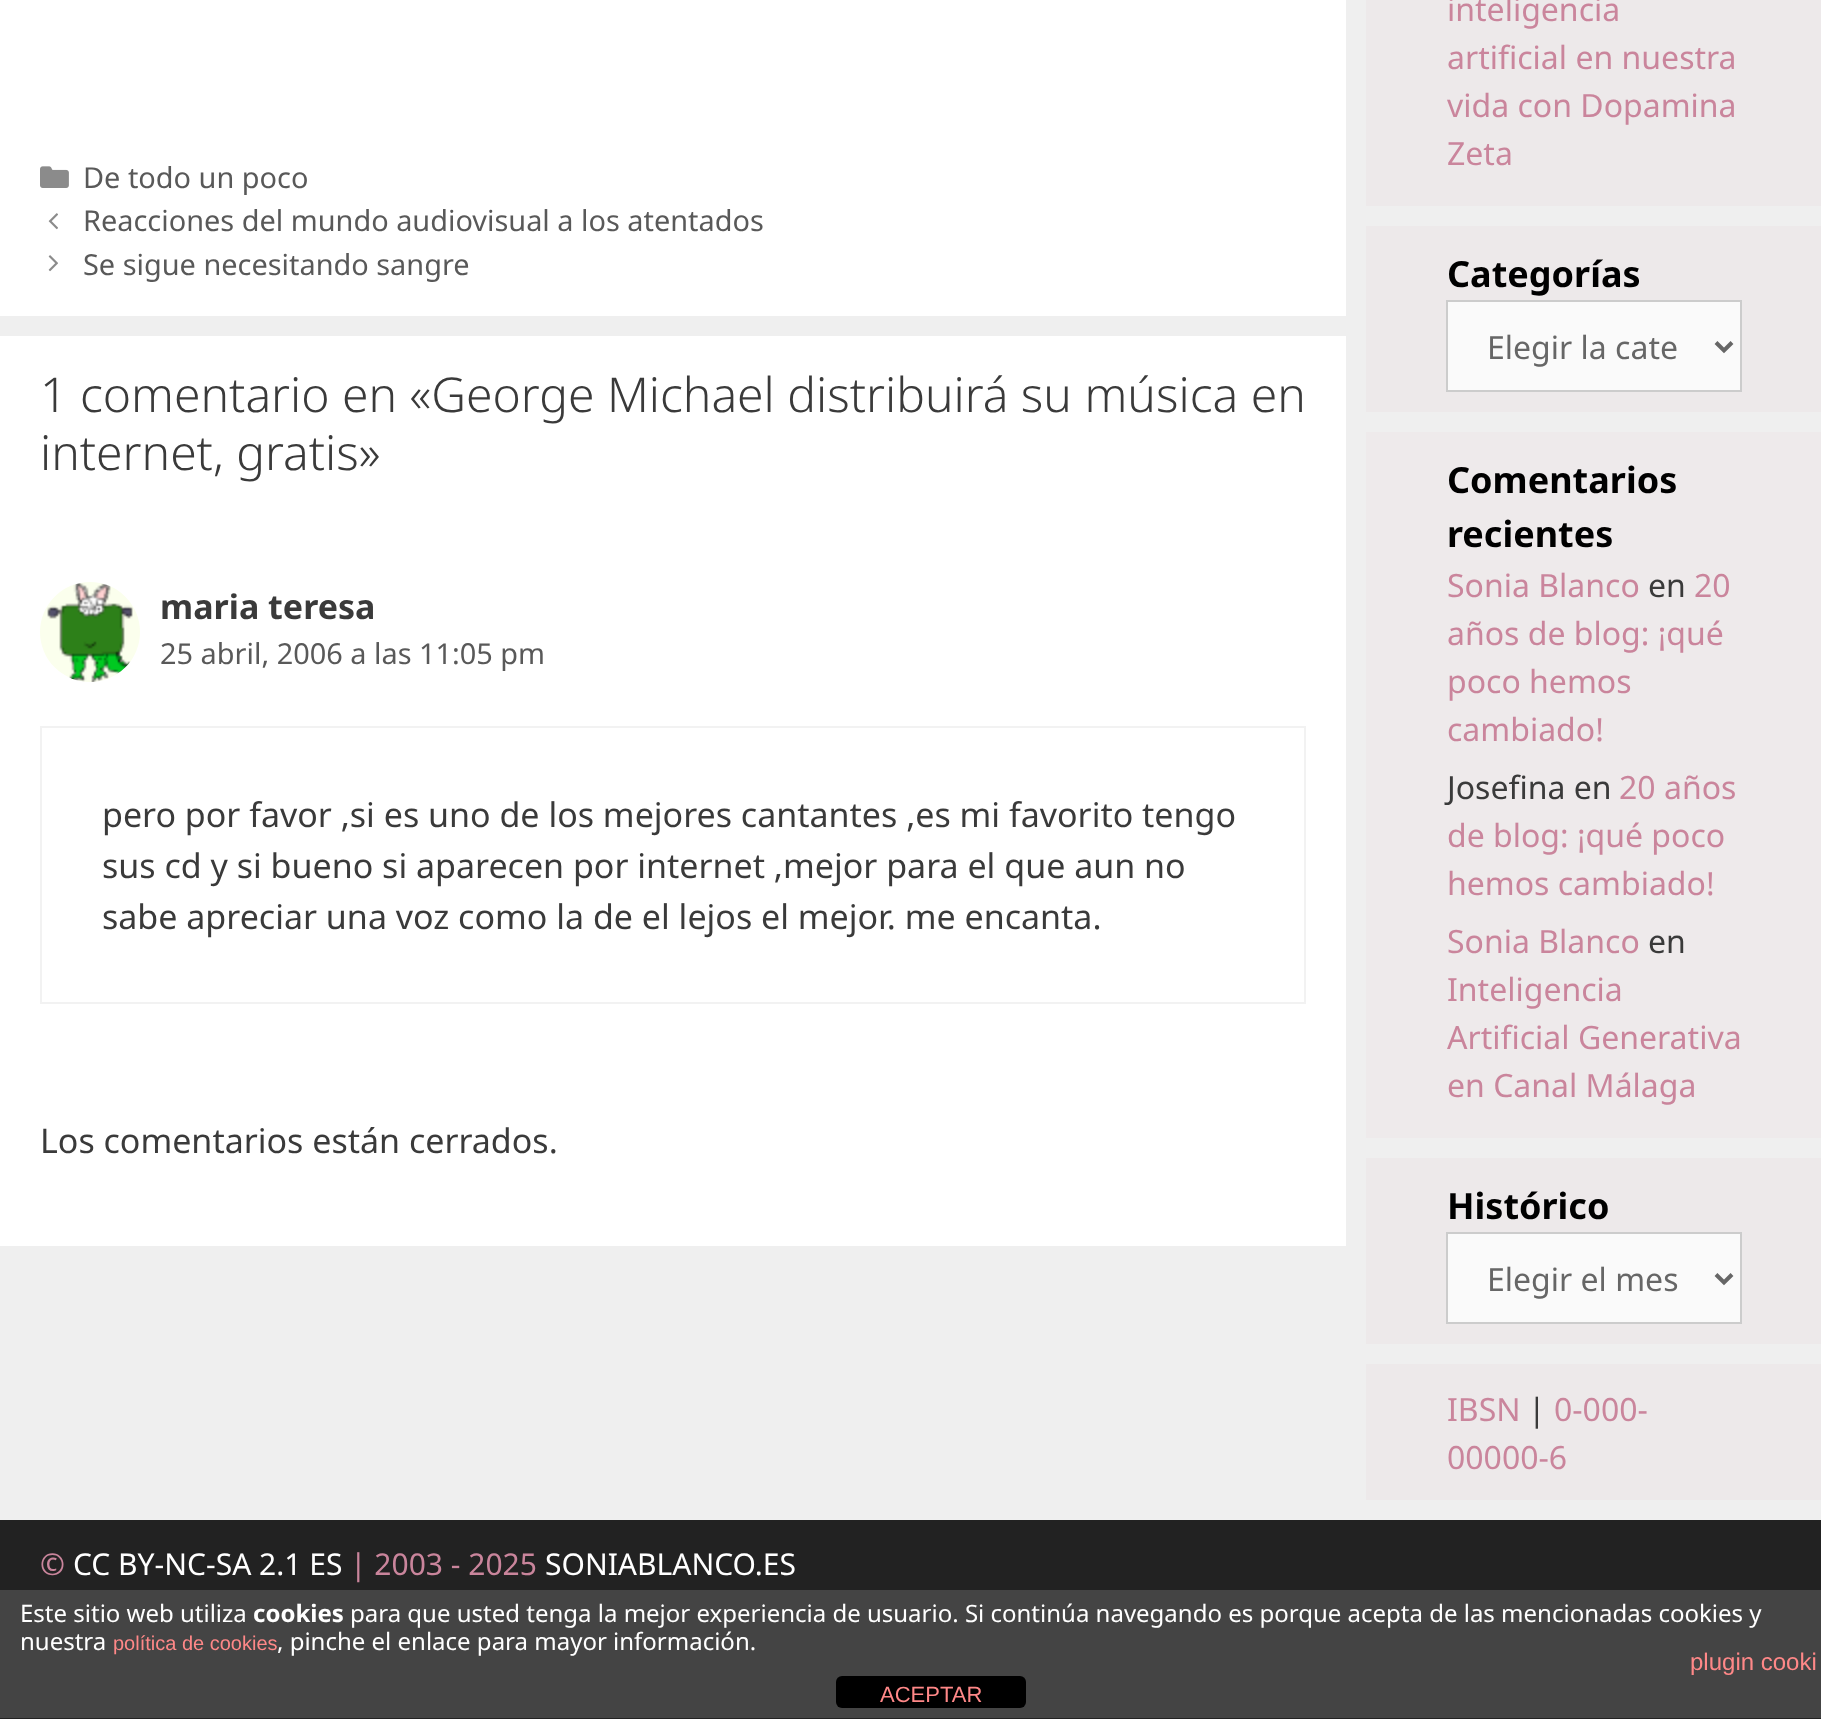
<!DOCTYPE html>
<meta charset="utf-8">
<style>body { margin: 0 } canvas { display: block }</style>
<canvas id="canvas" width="1821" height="1719"></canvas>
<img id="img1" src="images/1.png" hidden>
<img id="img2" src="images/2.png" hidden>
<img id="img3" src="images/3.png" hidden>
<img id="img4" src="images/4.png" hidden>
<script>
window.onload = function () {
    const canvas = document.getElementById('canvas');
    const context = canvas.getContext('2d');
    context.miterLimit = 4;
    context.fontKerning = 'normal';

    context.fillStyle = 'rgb(239, 239, 239)';
    context.fillRect(0, 0, 1821, 1719);
    context.fillStyle = 'rgb(255, 255, 255)';
    context.fillRect(0, 0, 1346, 316);
    context.drawImage(document.getElementById('img1'), 40, 166, 29, 22);
    context.drawImage(document.getElementById('img2'), 48, 213, 10, 17);
    context.drawImage(document.getElementById('img3'), 48, 255, 10, 17);
    context.fillRect(0, 336, 1346, 910);
    context.drawImage(document.getElementById('img4'), 40, 582, 100, 100);
    context.strokeStyle = 'rgb(242, 242, 242)';
    context.lineWidth = 2;
    context.strokeRect(41, 727, 1264, 276);
    context.fillStyle = 'rgb(237, 233, 234)';
    context.fillRect(1366, 0, 455, 206);
    context.fillRect(1366, 226, 455, 186);
    context.fillStyle = 'rgb(250, 250, 250)';
    context.beginPath();
    context.rect(1447, 301, 294, 90);
    context.fill();
    context.strokeStyle = 'rgb(204, 204, 204)';
    context.stroke();
    context.beginPath();
    context.moveTo(1716, 342.5);
    context.lineTo(1724, 350.5);
    context.lineTo(1732, 342.5);
    context.strokeStyle = 'rgb(102, 102, 102)';
    context.lineWidth = 4;
    context.stroke();
    context.fillStyle = 'rgb(238, 234, 235)';
    context.fillRect(1366, 432, 455, 706);
    context.fillStyle = 'rgb(237, 233, 234)';
    context.fillRect(1366, 1158, 455, 186);
    context.fillStyle = 'rgb(250, 250, 250)';
    context.beginPath();
    context.rect(1447, 1233, 294, 90);
    context.fill();
    context.strokeStyle = 'rgb(204, 204, 204)';
    context.lineWidth = 2;
    context.stroke();
    context.beginPath();
    context.moveTo(1716, 1274.5);
    context.lineTo(1724, 1282.5);
    context.lineTo(1732, 1274.5);
    context.strokeStyle = 'rgb(102, 102, 102)';
    context.lineWidth = 4;
    context.stroke();
    context.fillStyle = 'rgb(237, 233, 234)';
    context.fillRect(1366, 1364, 455, 136);
    context.fillStyle = 'rgb(34, 34, 34)';
    context.fillRect(0, 1520, 1821, 70);
    context.fillStyle = 'rgb(68, 68, 68)';
    context.fillRect(0, 1590, 1821, 128);
    context.fillStyle = 'rgb(34, 34, 34)';
    context.fillRect(0, 1718, 1821, 1);
    context.fillStyle = 'rgb(0, 0, 0)';
    context.beginPath();
    context.roundRect(836, 1676, 190, 32, 6);
    context.fill();
    context.font = '28.9px Noto Sans';
    context.fillStyle = 'rgb(89, 89, 89)';
    context.fillText('De todo un poco', 83, 188);
    context.fillText('Reacciones del mundo audiovisual a los atentados', 83, 231);
    context.fillText('Se sigue necesitando sangre', 83, 275);
    context.font = '300 48px Noto Sans';
    context.fillStyle = 'rgb(58, 58, 58)';
    context.fillText('1 comentario en «George Michael distribuirá su música en', 40, 412);
    context.fillText('internet, gratis»', 40, 470);
    context.font = 'bold 34px Noto Sans';
    context.fillText('maria teresa', 160, 619);
    context.font = '28.9px Noto Sans';
    context.fillStyle = 'rgb(89, 89, 89)';
    context.fillText('25 abril, 2006 a las 11:05 pm', 160, 664);
    context.font = '34px Noto Sans';
    context.fillStyle = 'rgb(58, 58, 58)';
    context.fillText('pero por favor ,si es uno de los mejores cantantes ,es mi favorito tengo', 102, 827);
    context.fillText('sus cd y si bueno si aparecen por internet ,mejor para el que aun no', 102, 878);
    context.fillText('sabe apreciar una voz como la de el lejos el mejor. me encanta.', 102, 929);
    context.fillText('Los comentarios están cerrados.', 40, 1153);
    context.font = '32px Noto Sans';
    context.fillStyle = 'rgb(202, 133, 156)';
    context.fillText('inteligencia', 1447, 21);
    context.fillText('artificial en nuestra', 1447, 69);
    context.fillText('vida con Dopamina', 1447, 117);
    context.fillText('Zeta', 1447, 165);
    context.font = 'bold 36px Noto Sans';
    context.fillStyle = 'rgb(0, 0, 0)';
    context.fillText('Categorías', 1447, 287);
    context.font = '32px Noto Sans';
    context.fillStyle = 'rgb(102, 102, 102)';
    context.fillText('Elegir la cate', 1487, 359);
    context.font = 'bold 36px Noto Sans';
    context.fillStyle = 'rgb(0, 0, 0)';
    context.fillText('Comentarios', 1447, 493);
    context.fillText('recientes', 1447, 547);
    context.font = '32px Noto Sans';
    context.fillStyle = 'rgb(202, 133, 156)';
    context.fillText('Sonia Blanco', 1447, 597);
    context.fillStyle = 'rgb(58, 58, 58)';
    context.fillText('en', 1648, 597);
    context.fillStyle = 'rgb(202, 133, 156)';
    context.fillText('20', 1694, 597);
    context.fillText('años de blog: ¡qué', 1447, 645);
    context.fillText('poco hemos', 1447, 693);
    context.fillText('cambiado!', 1447, 741);
    context.fillStyle = 'rgb(58, 58, 58)';
    context.fillText('Josefina en', 1447, 799);
    context.fillStyle = 'rgb(202, 133, 156)';
    context.fillText('20 años', 1619, 799);
    context.fillText('de blog: ¡qué poco', 1447, 847);
    context.fillText('hemos cambiado!', 1447, 895);
    context.fillText('Sonia Blanco', 1447, 953);
    context.fillStyle = 'rgb(58, 58, 58)';
    context.fillText('en', 1648, 953);
    context.fillStyle = 'rgb(202, 133, 156)';
    context.fillText('Inteligencia', 1447, 1001);
    context.fillText('Artificial Generativa', 1447, 1049);
    context.fillText('en Canal Málaga', 1447, 1097);
    context.font = 'bold 36px Noto Sans';
    context.fillStyle = 'rgb(0, 0, 0)';
    context.fillText('Histórico', 1447, 1219);
    context.font = '32px Noto Sans';
    context.fillStyle = 'rgb(102, 102, 102)';
    context.fillText('Elegir el mes', 1487, 1291);
    context.fillStyle = 'rgb(202, 133, 156)';
    context.fillText('IBSN', 1447, 1421);
    context.fillStyle = 'rgb(58, 58, 58)';
    context.fillText('|', 1528, 1421);
    context.fillStyle = 'rgb(202, 133, 156)';
    context.fillText('0-000-', 1554, 1421);
    context.fillText('00000-6', 1447, 1469);
    context.font = '30px Noto Sans';
    context.fillText('©', 40, 1575);
    context.fillStyle = 'rgb(255, 255, 255)';
    context.fillText('CC BY-NC-SA 2.1 ES', 73, 1575);
    context.fillStyle = 'rgb(202, 133, 156)';
    context.fillText('| 2003 - 2025', 350, 1575);
    context.fillStyle = 'rgb(255, 255, 255)';
    context.fillText('SONIABLANCO.ES', 545, 1575);
    context.font = '24px Noto Sans';
    context.fillText('Este sitio web utiliza', 20, 1622);
    context.font = 'bold 24px Noto Sans';
    context.fillText('cookies', 253, 1622);
    context.font = '24px Noto Sans';
    context.fillText('para que usted tenga la mejor experiencia de usuario. Si continúa navegando es porque acepta de las mencionadas cookies y', 350, 1622);
    context.fillText('nuestra', 20, 1650);
    context.font = '20px Liberation Sans';
    context.fillStyle = 'rgb(255, 136, 136)';
    context.fillText('política de cookies', 113, 1650);
    context.font = '24px Noto Sans';
    context.fillStyle = 'rgb(255, 255, 255)';
    context.fillText(', pinche el enlace para mayor información.', 277, 1650);
    context.font = '24px Liberation Sans';
    context.fillStyle = 'rgb(255, 136, 136)';
    context.fillText('plugin cooki', 1690, 1670);
    context.font = '22px Liberation Sans';
    context.fillText('ACEPTAR', 880, 1702);
};
</script>
